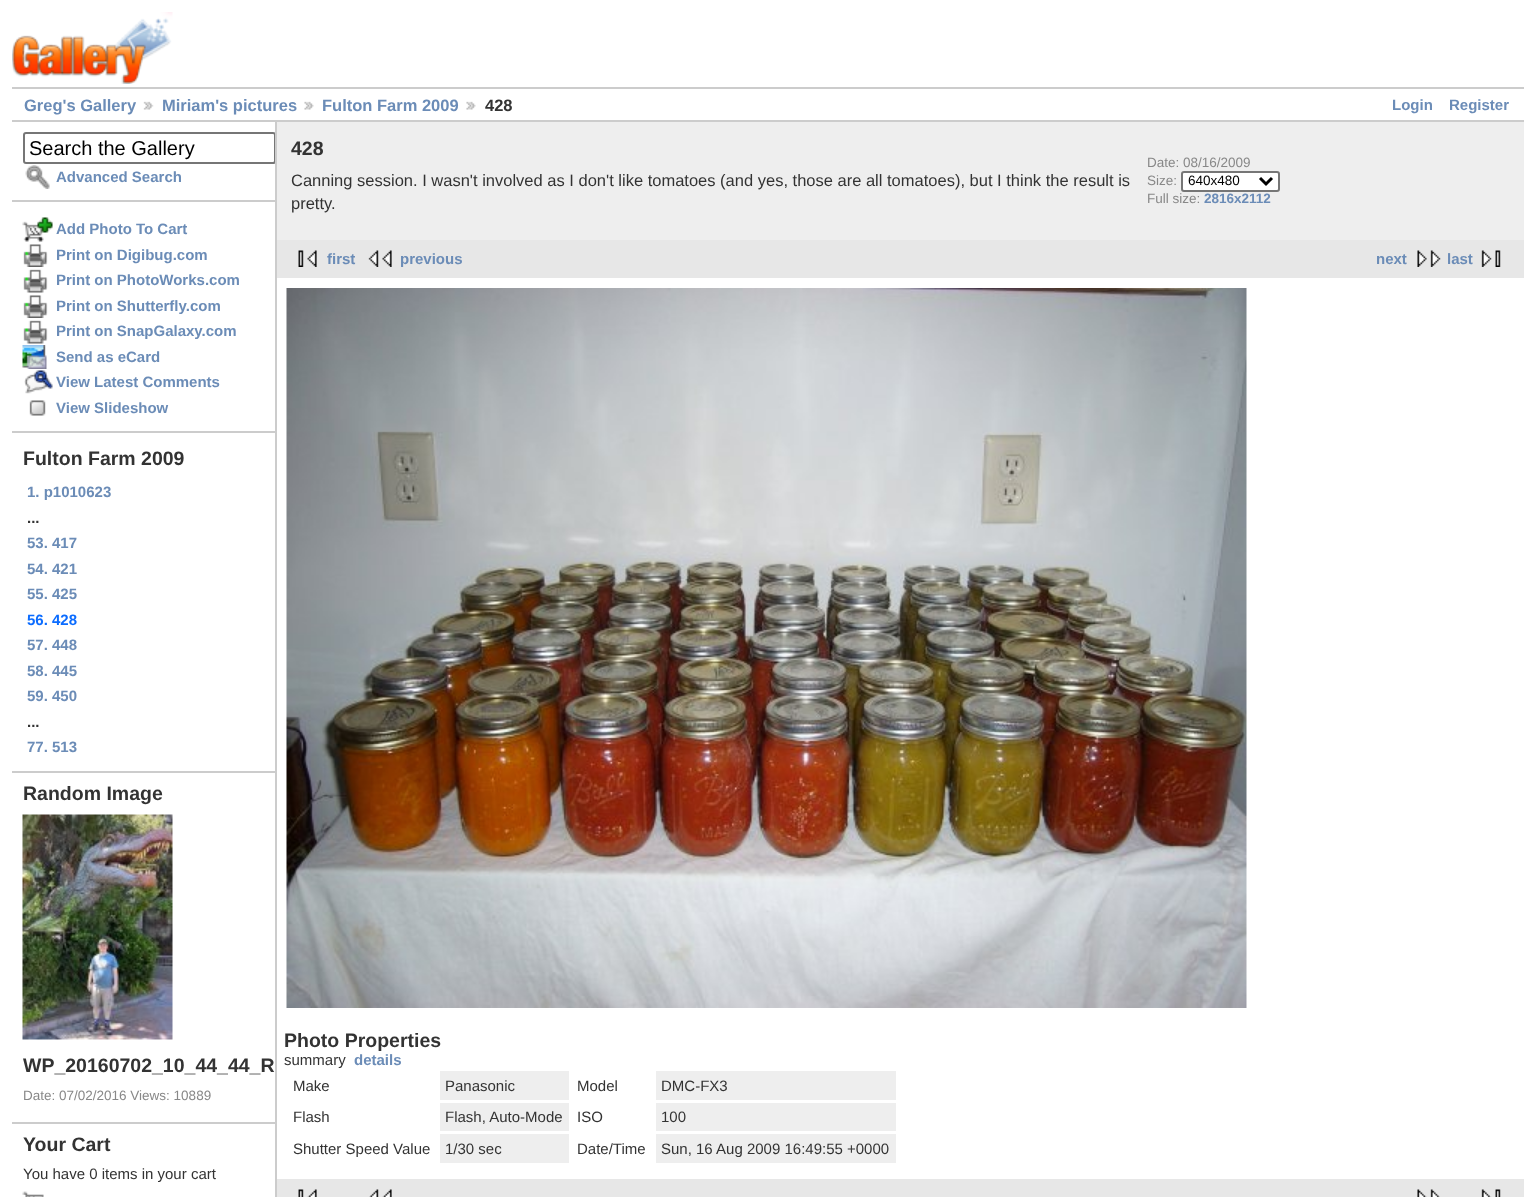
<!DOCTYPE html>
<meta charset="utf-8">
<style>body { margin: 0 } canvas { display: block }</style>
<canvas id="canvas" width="1535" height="1197"></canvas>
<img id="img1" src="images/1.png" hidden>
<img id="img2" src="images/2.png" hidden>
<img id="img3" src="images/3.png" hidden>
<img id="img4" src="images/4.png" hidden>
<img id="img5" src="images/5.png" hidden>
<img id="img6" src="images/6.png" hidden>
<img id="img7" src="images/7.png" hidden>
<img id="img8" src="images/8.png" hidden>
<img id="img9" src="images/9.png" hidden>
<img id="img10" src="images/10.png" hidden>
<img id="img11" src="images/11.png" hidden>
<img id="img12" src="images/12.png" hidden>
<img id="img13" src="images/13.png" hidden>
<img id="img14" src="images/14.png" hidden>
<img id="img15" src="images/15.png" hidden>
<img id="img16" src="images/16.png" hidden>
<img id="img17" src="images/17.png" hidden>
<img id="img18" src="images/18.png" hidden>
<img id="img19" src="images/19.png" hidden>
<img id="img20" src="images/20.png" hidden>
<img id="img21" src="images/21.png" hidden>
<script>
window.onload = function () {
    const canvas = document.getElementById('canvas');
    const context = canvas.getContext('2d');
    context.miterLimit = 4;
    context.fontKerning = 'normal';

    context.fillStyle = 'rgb(255, 255, 255)';
    context.fillRect(0, 0, 1535, 1197);
    context.drawImage(document.getElementById('img1'), 12, 12, 161, 72);
    context.fillStyle = 'rgb(204, 204, 204)';
    context.fillRect(12, 87, 1512, 2);
    context.fillRect(12, 120, 1512, 2);
    context.drawImage(document.getElementById('img2'), 143, 101, 11, 9);
    context.drawImage(document.getElementById('img3'), 304, 101, 10, 9);
    context.drawImage(document.getElementById('img3'), 466, 101, 10, 9);
    context.fillRect(275, 122, 2, 1075);
    context.fillRect(12, 200, 263, 2);
    context.save();
    context.beginPath();
    context.rect(12, 122, 263, 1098);
    context.clip();
    context.beginPath();
    context.roundRect(24, 133, 251, 30, 2);
    context.strokeStyle = 'rgb(118, 118, 118)';
    context.lineWidth = 2;
    context.stroke();
    context.restore();
    context.drawImage(document.getElementById('img4'), 25, 165, 25, 24);
    context.fillRect(12, 431, 263, 2);
    context.drawImage(document.getElementById('img5'), 22, 217, 31, 25);
    context.drawImage(document.getElementById('img6'), 23, 244, 25, 23);
    context.drawImage(document.getElementById('img7'), 23, 269, 25, 24);
    context.drawImage(document.getElementById('img6'), 23, 295, 25, 23);
    context.drawImage(document.getElementById('img7'), 23, 320, 25, 24);
    context.drawImage(document.getElementById('img8'), 22, 345, 25, 24);
    context.drawImage(document.getElementById('img9'), 24, 370, 29, 24);
    context.drawImage(document.getElementById('img10'), 29, 400, 17, 16);
    context.fillRect(12, 771, 263, 2);
    context.fillRect(12, 1122, 263, 2);
    context.drawImage(document.getElementById('img11'), 22, 814, 151, 226);
    context.drawImage(document.getElementById('img12'), 22, 1191, 22, 6);
    context.fillStyle = 'rgb(238, 238, 238)';
    context.fillRect(277, 122, 1247, 118);
    context.fillStyle = 'rgb(255, 255, 255)';
    context.beginPath();
    context.roundRect(1182, 172, 97, 19, 2);
    context.fill();
    context.strokeStyle = 'rgb(118, 118, 118)';
    context.lineWidth = 2;
    context.stroke();
    context.beginPath();
    context.moveTo(1260, 178);
    context.lineTo(1266, 184);
    context.lineTo(1272, 178);
    context.strokeStyle = 'rgb(0, 0, 0)';
    context.lineWidth = 3;
    context.stroke();
    context.fillStyle = 'rgb(231, 231, 231)';
    context.fillRect(277, 240, 1247, 38);
    context.drawImage(document.getElementById('img13'), 298, 250, 19, 17);
    context.drawImage(document.getElementById('img14'), 368, 250, 24, 17);
    context.drawImage(document.getElementById('img15'), 1417, 250, 24, 17);
    context.drawImage(document.getElementById('img16'), 1481, 250, 20, 17);
    context.drawImage(document.getElementById('img17'), 286, 288, 961, 720);
    context.fillStyle = 'rgb(238, 238, 238)';
    context.fillRect(440, 1071, 129, 29);
    context.fillRect(656, 1071, 240, 29);
    context.fillRect(440, 1103, 129, 28);
    context.fillRect(656, 1103, 240, 28);
    context.fillRect(440, 1134, 129, 29);
    context.fillRect(656, 1134, 240, 29);
    context.fillStyle = 'rgb(231, 231, 231)';
    context.fillRect(277, 1179, 1247, 18);
    context.drawImage(document.getElementById('img18'), 298, 1189, 19, 8);
    context.drawImage(document.getElementById('img19'), 369, 1189, 23, 8);
    context.drawImage(document.getElementById('img20'), 1417, 1189, 23, 8);
    context.drawImage(document.getElementById('img21'), 1481, 1189, 20, 8);
    context.font = 'bold 16.5px Liberation Sans';
    context.fillStyle = 'rgb(107, 140, 183)';
    context.fillText('Greg\'s Gallery', 24, 111);
    context.fillText('Miriam\'s pictures', 162, 111);
    context.fillText('Fulton Farm 2009', 322, 111);
    context.fillStyle = 'rgb(51, 51, 51)';
    context.fillText('428', 485, 111);
    context.font = 'bold 15px Liberation Sans';
    context.fillStyle = 'rgb(107, 140, 183)';
    context.fillText('Login', 1392, 110);
    context.fillText('Register', 1449, 110);
    context.font = '20px Liberation Sans';
    context.fillStyle = 'rgb(0, 0, 0)';
    context.fillText('Search the Gallery', 29, 155);
    context.font = 'bold 15px Liberation Sans';
    context.fillStyle = 'rgb(107, 140, 183)';
    context.fillText('Advanced Search', 56, 182);
    context.fillText('Add Photo To Cart', 56, 234);
    context.fillText('Print on Digibug.com', 56, 260);
    context.fillText('Print on PhotoWorks.com', 56, 285);
    context.fillText('Print on Shutterfly.com', 56, 311);
    context.fillText('Print on SnapGalaxy.com', 56, 336);
    context.fillText('Send as eCard', 56, 362);
    context.fillText('View Latest Comments', 56, 387);
    context.fillText('View Slideshow', 56, 413);
    context.font = 'bold 19.5px Liberation Sans';
    context.fillStyle = 'rgb(51, 51, 51)';
    context.fillText('Fulton Farm 2009', 23, 465);
    context.font = 'bold 15px Liberation Sans';
    context.fillStyle = 'rgb(107, 140, 183)';
    context.fillText('1. p1010623', 27, 497);
    context.fillStyle = 'rgb(51, 51, 51)';
    context.fillText('...', 27, 523);
    context.fillStyle = 'rgb(107, 140, 183)';
    context.fillText('53. 417', 27, 548);
    context.fillText('54. 421', 27, 574);
    context.fillText('55. 425', 27, 599);
    context.fillStyle = 'rgb(11, 108, 255)';
    context.fillText('56. 428', 27, 625);
    context.fillStyle = 'rgb(107, 140, 183)';
    context.fillText('57. 448', 27, 650);
    context.fillText('58. 445', 27, 676);
    context.fillText('59. 450', 27, 701);
    context.fillStyle = 'rgb(51, 51, 51)';
    context.fillText('...', 27, 727);
    context.fillStyle = 'rgb(107, 140, 183)';
    context.fillText('77. 513', 27, 752);
    context.font = 'bold 19.5px Liberation Sans';
    context.fillStyle = 'rgb(51, 51, 51)';
    context.fillText('Random Image', 23, 800);
    context.fillText('WP_20160702_10_44_44_R', 23, 1072);
    context.font = '13.5px Liberation Sans';
    context.fillStyle = 'rgb(136, 136, 136)';
    context.fillText('Date: 07/02/2016 Views: 10889', 23, 1100);
    context.font = 'bold 19.5px Liberation Sans';
    context.fillStyle = 'rgb(51, 51, 51)';
    context.fillText('Your Cart', 23, 1151);
    context.font = '15px Liberation Sans';
    context.fillText('You have 0 items in your cart', 23, 1179);
    context.font = 'bold 19.5px Liberation Sans';
    context.fillText('428', 291, 155);
    context.font = '16.5px Liberation Sans';
    context.fillText('Canning session. I wasn\'t involved as I don\'t like tomatoes (and yes, those are all tomatoes), but I think the result is', 291, 186);
    context.fillText('pretty.', 291, 209);
    context.font = '13.5px Liberation Sans';
    context.fillStyle = 'rgb(136, 136, 136)';
    context.fillText('Date: 08/16/2009', 1147, 167);
    context.fillText('Size:', 1147, 185);
    context.fillStyle = 'rgb(0, 0, 0)';
    context.fillText('640x480', 1188, 185);
    context.fillStyle = 'rgb(136, 136, 136)';
    context.fillText('Full size:', 1147, 203);
    context.font = 'bold 13.5px Liberation Sans';
    context.fillStyle = 'rgb(107, 140, 183)';
    context.fillText('2816x2112', 1204, 203);
    context.font = 'bold 15px Liberation Sans';
    context.fillText('first', 327, 264);
    context.fillText('previous', 400, 264);
    context.fillText('next', 1376, 264);
    context.fillText('last', 1447, 264);
    context.font = 'bold 19.5px Liberation Sans';
    context.fillStyle = 'rgb(51, 51, 51)';
    context.fillText('Photo Properties', 284, 1047);
    context.font = '15px Liberation Sans';
    context.fillText('summary', 284, 1065);
    context.font = 'bold 15px Liberation Sans';
    context.fillStyle = 'rgb(107, 140, 183)';
    context.fillText('details', 354, 1065);
    context.font = '15px Liberation Sans';
    context.fillStyle = 'rgb(51, 51, 51)';
    context.fillText('Make', 293, 1091);
    context.fillText('Panasonic', 445, 1091);
    context.fillText('Model', 577, 1091);
    context.fillText('DMC-FX3', 661, 1091);
    context.fillText('Flash', 293, 1122);
    context.fillText('Flash, Auto-Mode', 445, 1122);
    context.fillText('ISO', 577, 1122);
    context.fillText('100', 661, 1122);
    context.fillText('Shutter Speed Value', 293, 1154);
    context.fillText('1/30 sec', 445, 1154);
    context.fillText('Date/Time', 577, 1154);
    context.fillText('Sun, 16 Aug 2009 16:49:55 +0000', 661, 1154);
};
</script>
